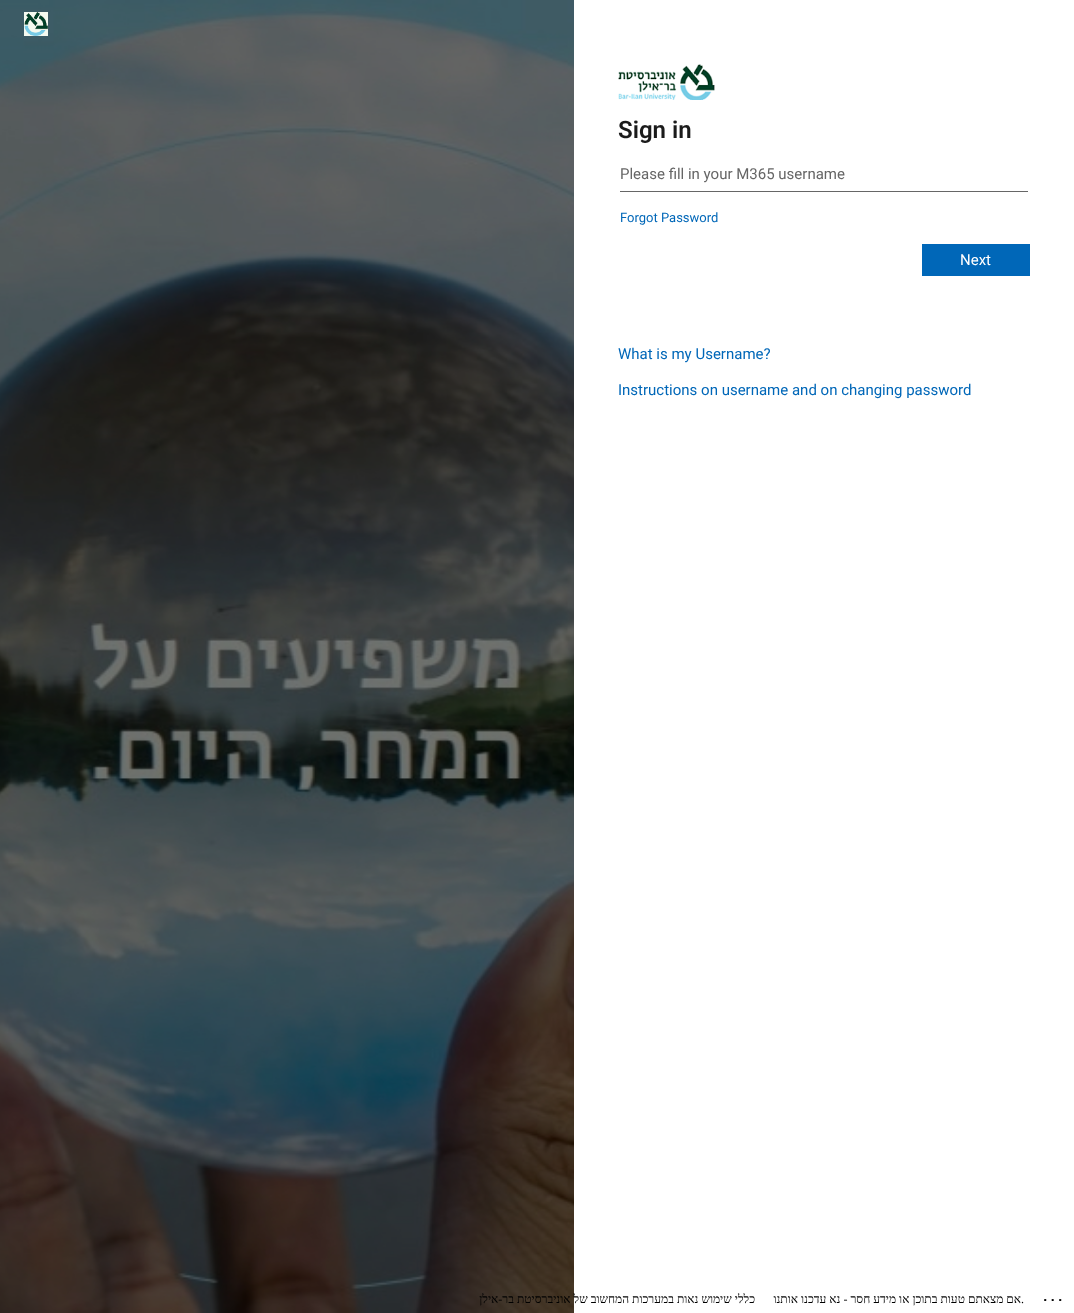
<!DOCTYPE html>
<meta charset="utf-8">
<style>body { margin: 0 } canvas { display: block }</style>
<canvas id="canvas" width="1074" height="1313"></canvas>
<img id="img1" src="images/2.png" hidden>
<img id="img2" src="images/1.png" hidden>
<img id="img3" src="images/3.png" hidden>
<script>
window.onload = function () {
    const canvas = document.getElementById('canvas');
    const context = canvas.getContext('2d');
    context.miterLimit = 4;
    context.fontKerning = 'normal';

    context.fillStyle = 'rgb(255, 255, 255)';
    context.fillRect(0, 0, 1074, 1313);
    context.drawImage(document.getElementById('img1'), 0, 0, 574, 1313);
    context.drawImage(document.getElementById('img2'), 24, 12, 24, 24);
    context.drawImage(document.getElementById('img3'), 618, 64, 97, 36);
    context.fillStyle = 'rgb(102, 102, 102)';
    context.fillRect(620, 191, 408, 1);
    context.fillStyle = 'rgb(0, 103, 184)';
    context.fillRect(922, 244, 108, 32);
    context.font = '600 24px Roboto';
    context.fillStyle = 'rgb(27, 27, 27)';
    context.fillText('Sign in', 618, 138);
    context.font = '15px Roboto';
    context.fillStyle = 'rgb(102, 102, 102)';
    context.fillText('Please fill in your M365 username', 620, 179);
    context.font = '13px Roboto';
    context.fillStyle = 'rgb(0, 103, 184)';
    context.fillText('Forgot Password', 620, 222);
    context.font = '15px Roboto';
    context.fillStyle = 'rgb(255, 255, 255)';
    context.fillText('Next', 960, 265);
    context.fillStyle = 'rgb(0, 103, 184)';
    context.fillText('What is my Username?', 618, 359);
    context.fillText('Instructions on username and on changing password', 618, 395);
    context.direction = 'rtl';
    context.font = '12px Liberation Serif';
    context.fillStyle = 'rgb(0, 0, 0)';
    context.fillText('כללי שימוש נאות במערכות המחשוב של אוניברסיטת בר-אילן', 755, 1303);
    context.fillText('אם מצאתם טעות בתוכן או מידע חסר - נא עדכנו אותנו', 1021, 1303);
    context.direction = 'ltr';
    context.fillText('.', 1021, 1303);
    context.letterSpacing = '3px';
    context.font = '600 16px Roboto';
    context.fillText('...', 1043, 1301);
};
</script>
